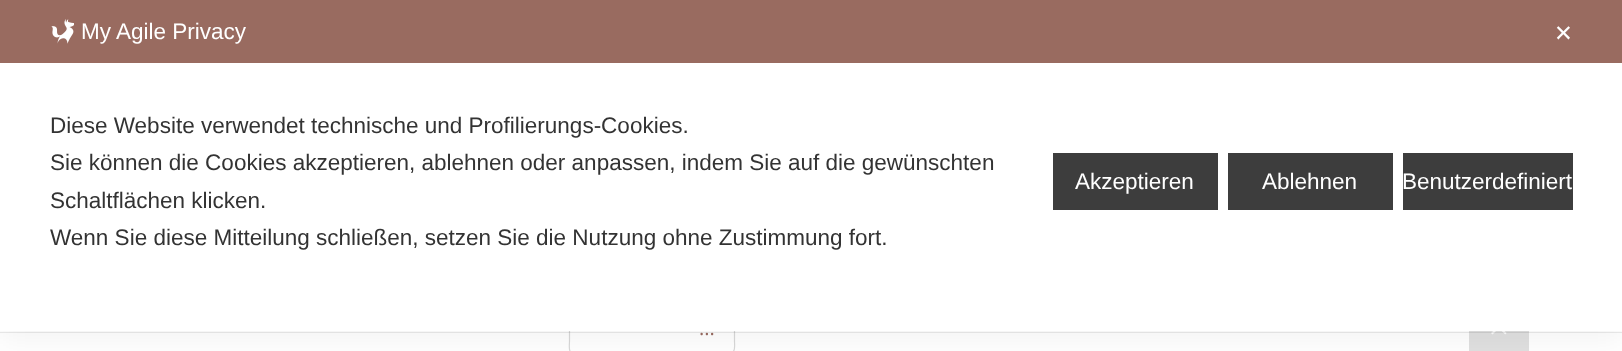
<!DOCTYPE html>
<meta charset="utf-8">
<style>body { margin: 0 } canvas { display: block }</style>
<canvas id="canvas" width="1622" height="351"></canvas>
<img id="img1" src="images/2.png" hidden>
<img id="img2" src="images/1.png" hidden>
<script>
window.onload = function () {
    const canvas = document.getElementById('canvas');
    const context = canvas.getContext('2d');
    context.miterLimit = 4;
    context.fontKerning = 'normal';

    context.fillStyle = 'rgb(255, 255, 255)';
    context.fillRect(0, 0, 1622, 351);
    context.beginPath();
    context.moveTo(570.5, 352);
    context.bezierCurveTo(568.5, 349.5, 569.5, 344, 569.5, 341.5);
    context.lineTo(569.5, 313.5);
    context.bezierCurveTo(569.5, 310, 568, 302, 574, 302);
    context.lineTo(704, 302);
    context.bezierCurveTo(739.5, 302, 734.5, 295.5, 734.5, 327.5);
    context.lineTo(734.5, 341.5);
    context.bezierCurveTo(734.5, 344, 735.5, 349.5, 733, 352);
    context.strokeStyle = 'rgb(216, 216, 216)';
    context.lineWidth = 1.2;
    context.stroke();
    context.fillStyle = 'rgb(224, 224, 224)';
    context.fillRect(1469, 331, 60, 20);
    context.drawImage(document.getElementById('img1'), 1491, 331, 16, 4);
    context.font = '20px Open Sans';
    context.fillStyle = 'rgb(153, 107, 96)';
    context.fillText('...', 699, 335);
    context.strokeStyle = 'rgba(0, 0, 0, 0.08)';
    context.lineWidth = 1;
    context.strokeRect(-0.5, -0.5, 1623, 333);
    context.fillStyle = 'rgba(0, 0, 0, 0.05)';
    context.filter = 'blur(15px)';
    context.beginPath();
    context.rect(0, 8, 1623, 331);
    context.fill();
    context.filter = 'none';
    context.fillStyle = 'rgb(153, 107, 96)';
    context.fillRect(0, 0, 1622, 63);
    context.font = '22.5px DejaVu Sans';
    context.fillStyle = 'rgb(255, 255, 255)';
    context.fillText('✕', 1554, 41);
    context.drawImage(document.getElementById('img2'), 51, 19, 23, 25);
    context.fillRect(0, 63, 1622, 268);
    context.fillStyle = 'rgb(61, 61, 61)';
    context.fillRect(1403, 153, 170, 57);
    context.font = '22.5px Liberation Sans';
    context.fillStyle = 'rgb(255, 255, 255)';
    context.fillText('Benutzerdefiniert', 1402, 189);
    context.fillStyle = 'rgb(61, 61, 61)';
    context.fillRect(1228, 153, 165, 57);
    context.fillStyle = 'rgb(255, 255, 255)';
    context.fillText('Ablehnen', 1262, 189);
    context.fillStyle = 'rgb(61, 61, 61)';
    context.fillRect(1053, 153, 165, 57);
    context.fillStyle = 'rgb(255, 255, 255)';
    context.fillText('Akzeptieren', 1075, 189);
    context.fillStyle = 'rgb(51, 51, 51)';
    context.fillText('Wenn Sie diese Mitteilung schließen, setzen Sie die Nutzung ohne Zustimmung fort.', 50, 245);
    context.fillText('Schaltflächen klicken.', 50, 208);
    context.fillText('Sie können die Cookies akzeptieren, ablehnen oder anpassen, indem Sie auf die gewünschten', 50, 170);
    context.fillText('Diese Website verwendet technische und Profilierungs-Cookies.', 50, 133);
    context.fillStyle = 'rgb(255, 255, 255)';
    context.fillText('My Agile Privacy', 81, 39);
};
</script>
